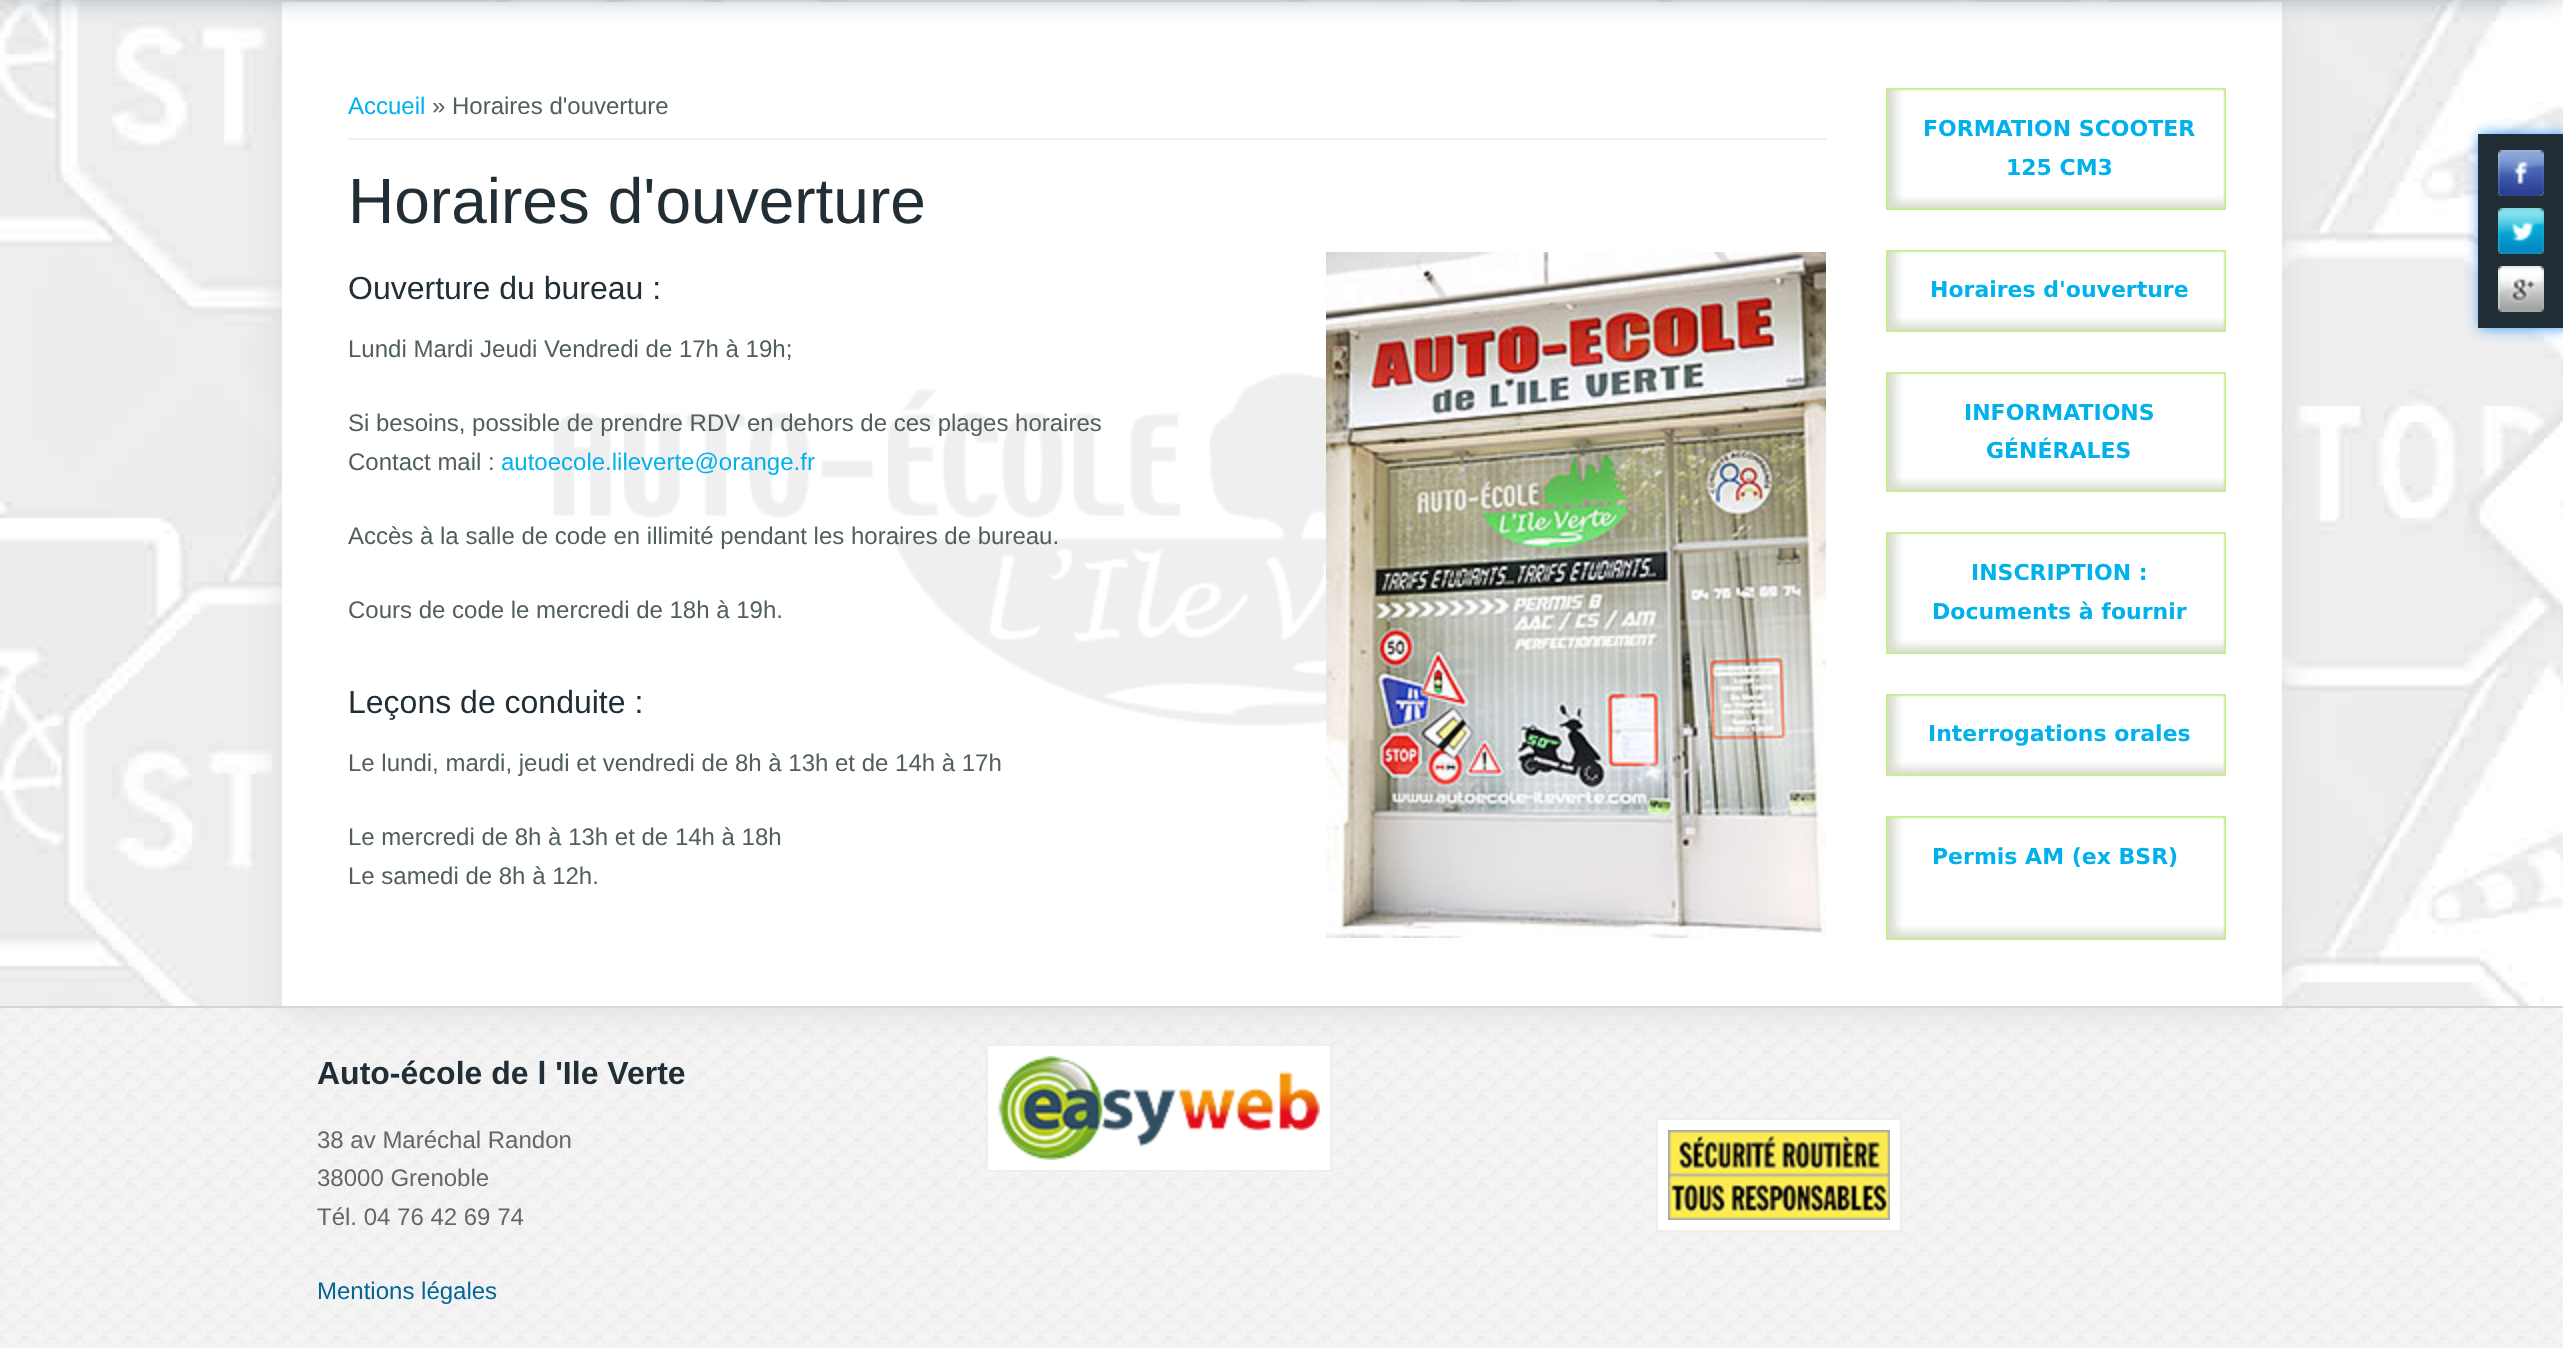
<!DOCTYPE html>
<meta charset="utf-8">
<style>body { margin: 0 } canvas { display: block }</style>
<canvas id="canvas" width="2563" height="1348"></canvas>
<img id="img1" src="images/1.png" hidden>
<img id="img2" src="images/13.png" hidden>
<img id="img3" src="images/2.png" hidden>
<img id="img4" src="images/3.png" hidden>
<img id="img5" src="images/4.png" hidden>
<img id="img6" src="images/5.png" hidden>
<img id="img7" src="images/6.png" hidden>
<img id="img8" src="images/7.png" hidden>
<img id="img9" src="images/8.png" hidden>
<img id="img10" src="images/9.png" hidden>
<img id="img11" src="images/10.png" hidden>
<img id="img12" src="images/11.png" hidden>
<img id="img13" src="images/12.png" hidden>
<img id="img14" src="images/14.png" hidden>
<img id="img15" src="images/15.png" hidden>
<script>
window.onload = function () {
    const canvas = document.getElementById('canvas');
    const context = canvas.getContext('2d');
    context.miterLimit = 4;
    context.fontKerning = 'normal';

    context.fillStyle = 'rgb(255, 255, 255)';
    context.fillRect(0, 0, 2563, 1348);
    context.drawImage(document.getElementById('img1'), 0, 0, 2563, 1006);
    context.drawImage(document.getElementById('img2'), 0, 1008, 2563, 340);
    context.fillStyle = 'rgb(207, 215, 219)';
    context.fillRect(0, 1006, 2563, 2);
    context.fillStyle = 'rgb(221, 221, 221)';
    context.filter = 'blur(18px)';
    context.beginPath();
    context.rect(282, 6, 2000, 1004);
    context.fill();
    context.filter = 'none';
    context.fillStyle = 'rgb(255, 255, 255)';
    context.fillRect(282, 2, 2000, 1004);
    context.fillStyle = 'rgb(2, 23, 54)';
    context.filter = 'blur(18px)';
    context.beginPath();
    context.rect(-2, -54, 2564, 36);
    context.fill();
    context.filter = 'none';
    context.fillStyle = 'rgb(43, 150, 250)';
    context.filter = 'blur(7px)';
    context.beginPath();
    context.rect(2480, 134, 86, 194);
    context.fill();
    context.filter = 'none';
    context.fillStyle = 'rgb(34, 46, 54)';
    context.fillRect(2478, 134, 85, 194);
    context.drawImage(document.getElementById('img3'), 2498, 150, 46, 46);
    context.drawImage(document.getElementById('img4'), 2498, 208, 46, 46);
    context.drawImage(document.getElementById('img5'), 2498, 266, 46, 46);
    context.drawImage(document.getElementById('img6'), 553, 373, 773, 353);
    context.fillStyle = 'rgb(238, 238, 238)';
    context.fillRect(348, 138, 1478, 2);
    context.drawImage(document.getElementById('img7'), 1326, 252, 500, 686);
    context.drawImage(document.getElementById('img8'), 1886, 88, 340, 22);
    context.drawImage(document.getElementById('img9'), 1886, 110, 340, 86);
    context.drawImage(document.getElementById('img10'), 1886, 196, 340, 14);
    context.drawImage(document.getElementById('img8'), 1886, 250, 340, 22);
    context.drawImage(document.getElementById('img11'), 1886, 272, 340, 46);
    context.drawImage(document.getElementById('img10'), 1886, 318, 340, 14);
    context.drawImage(document.getElementById('img8'), 1886, 372, 340, 22);
    context.drawImage(document.getElementById('img12'), 1886, 394, 340, 84);
    context.drawImage(document.getElementById('img10'), 1886, 478, 340, 14);
    context.drawImage(document.getElementById('img8'), 1886, 532, 340, 22);
    context.drawImage(document.getElementById('img9'), 1886, 554, 340, 86);
    context.drawImage(document.getElementById('img10'), 1886, 640, 340, 14);
    context.drawImage(document.getElementById('img8'), 1886, 694, 340, 22);
    context.drawImage(document.getElementById('img11'), 1886, 716, 340, 46);
    context.drawImage(document.getElementById('img10'), 1886, 762, 340, 14);
    context.drawImage(document.getElementById('img8'), 1886, 816, 340, 22);
    context.drawImage(document.getElementById('img13'), 1886, 838, 340, 88);
    context.drawImage(document.getElementById('img10'), 1886, 926, 340, 14);
    context.fillStyle = 'rgb(255, 255, 255)';
    context.beginPath();
    context.rect(987, 1045, 344, 126);
    context.fill();
    context.strokeStyle = 'rgb(238, 238, 238)';
    context.lineWidth = 2;
    context.stroke();
    context.drawImage(document.getElementById('img14'), 998, 1056, 322, 104);
    context.beginPath();
    context.rect(1657, 1119, 244, 112);
    context.fill();
    context.stroke();
    context.drawImage(document.getElementById('img15'), 1668, 1130, 222, 90);
    context.font = '24px Liberation Sans';
    context.fillStyle = 'rgb(0, 177, 236)';
    context.fillText('Accueil', 348, 114);
    context.fillStyle = 'rgb(81, 95, 92)';
    context.fillText('» Horaires d\'ouverture', 432, 114);
    context.font = '64px Liberation Sans';
    context.fillStyle = 'rgb(34, 46, 54)';
    context.fillText('Horaires d\'ouverture', 348, 223);
    context.font = '32px Liberation Sans';
    context.fillText('Ouverture du bureau :', 348, 299);
    context.font = '24px Liberation Sans';
    context.fillStyle = 'rgb(81, 95, 92)';
    context.fillText('Lundi Mardi Jeudi Vendredi de 17h à 19h;', 348, 357);
    context.fillText('Si besoins, possible de prendre RDV en dehors de ces plages horaires', 348, 431);
    context.fillText('Contact mail :', 348, 470);
    context.fillStyle = 'rgb(0, 177, 236)';
    context.fillText('autoecole.lileverte@orange.fr', 501, 470);
    context.fillStyle = 'rgb(81, 95, 92)';
    context.fillText('Accès à la salle de code en illimité pendant les horaires de bureau.', 348, 544);
    context.fillText('Cours de code le mercredi de 18h à 19h.', 348, 618);
    context.font = '32px Liberation Sans';
    context.fillStyle = 'rgb(34, 46, 54)';
    context.fillText('Leçons de conduite :', 348, 713);
    context.font = '24px Liberation Sans';
    context.fillStyle = 'rgb(81, 95, 92)';
    context.fillText('Le lundi, mardi, jeudi et vendredi de 8h à 13h et de 14h à 17h', 348, 771);
    context.fillText('Le mercredi de 8h à 13h et de 14h à 18h', 348, 845);
    context.fillText('Le samedi de 8h à 12h.', 348, 884);
    context.font = 'bold 22px DejaVu Sans';
    context.fillStyle = 'rgb(0, 177, 236)';
    context.fillText('FORMATION SCOOTER', 1923, 136);
    context.fillText('125 CM3', 2006, 175);
    context.fillText('Horaires d\'ouverture', 1930, 297);
    context.fillText('INFORMATIONS', 1964, 420);
    context.fillText('GÉNÉRALES', 1986, 458);
    context.fillText('INSCRIPTION :', 1971, 580);
    context.fillText('Documents à fournir', 1932, 619);
    context.fillText('Interrogations orales', 1928, 741);
    context.fillText('Permis AM (ex BSR)', 1932, 864);
    context.font = 'bold 32px Liberation Sans';
    context.fillStyle = 'rgb(34, 46, 54)';
    context.fillText('Auto-école de l \'Ile Verte', 317, 1084);
    context.font = '24px Liberation Sans';
    context.fillStyle = 'rgb(104, 101, 101)';
    context.fillText('38 av Maréchal Randon', 317, 1148);
    context.fillText('38000 Grenoble', 317, 1186);
    context.fillText('Tél. 04 76 42 69 74', 317, 1225);
    context.fillStyle = 'rgb(0, 102, 148)';
    context.fillText('Mentions légales', 317, 1299);
};
</script>
